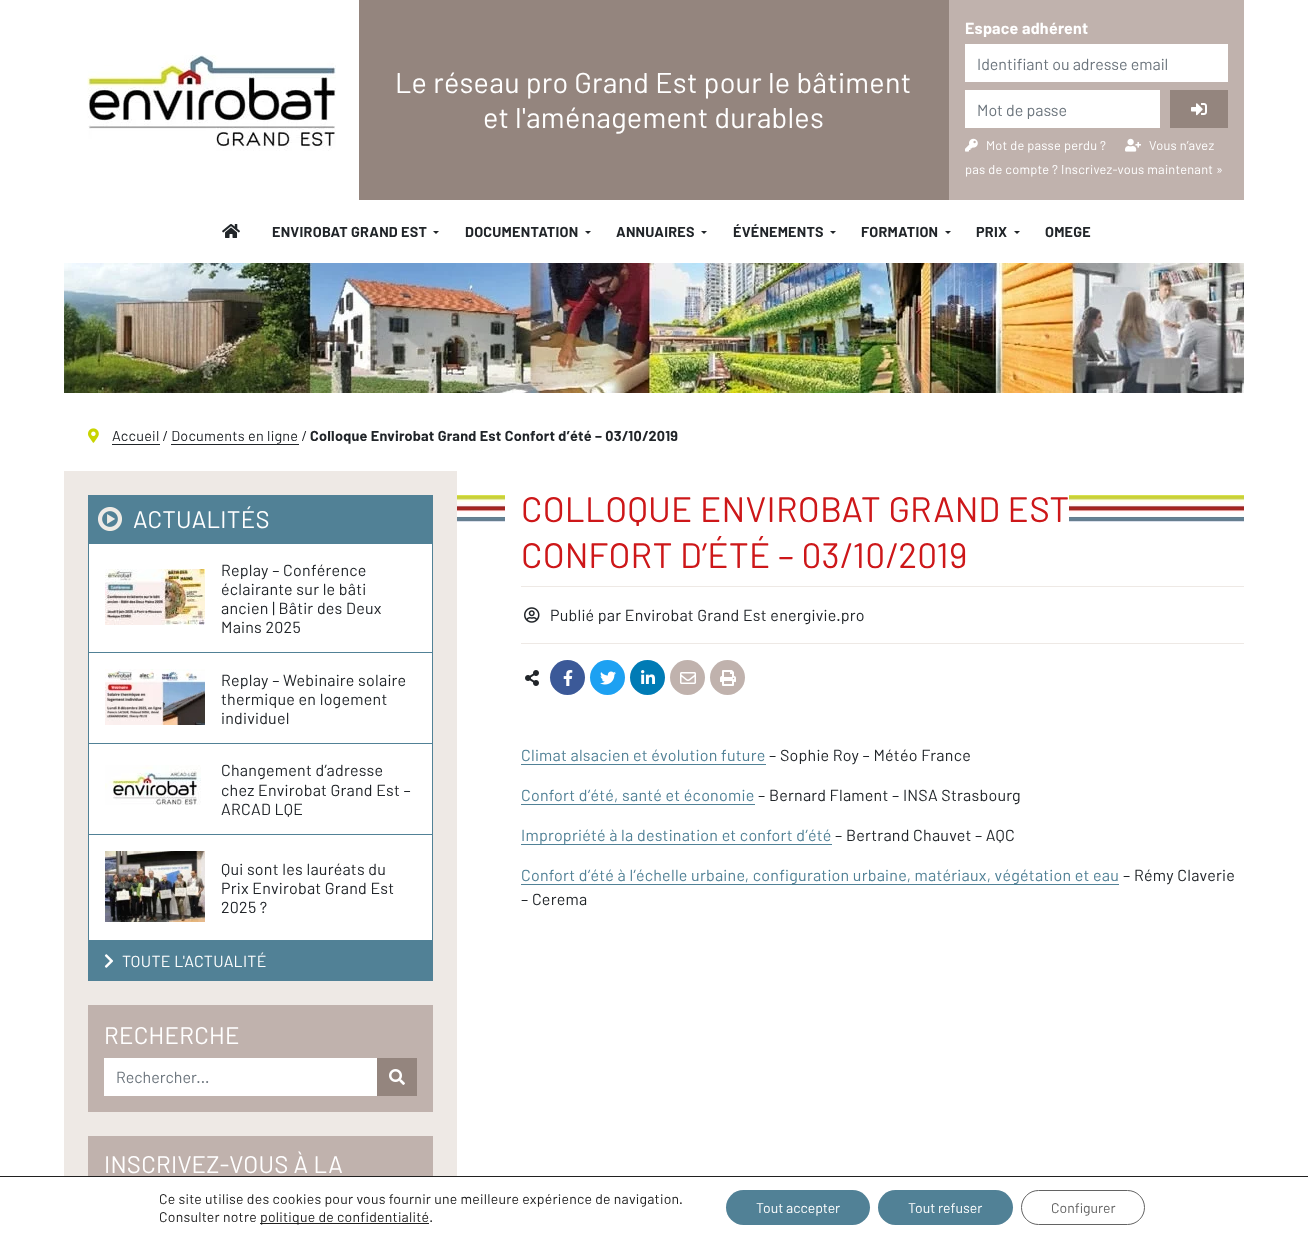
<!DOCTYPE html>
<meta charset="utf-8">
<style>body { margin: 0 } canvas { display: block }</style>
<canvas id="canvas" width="1308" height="1238"></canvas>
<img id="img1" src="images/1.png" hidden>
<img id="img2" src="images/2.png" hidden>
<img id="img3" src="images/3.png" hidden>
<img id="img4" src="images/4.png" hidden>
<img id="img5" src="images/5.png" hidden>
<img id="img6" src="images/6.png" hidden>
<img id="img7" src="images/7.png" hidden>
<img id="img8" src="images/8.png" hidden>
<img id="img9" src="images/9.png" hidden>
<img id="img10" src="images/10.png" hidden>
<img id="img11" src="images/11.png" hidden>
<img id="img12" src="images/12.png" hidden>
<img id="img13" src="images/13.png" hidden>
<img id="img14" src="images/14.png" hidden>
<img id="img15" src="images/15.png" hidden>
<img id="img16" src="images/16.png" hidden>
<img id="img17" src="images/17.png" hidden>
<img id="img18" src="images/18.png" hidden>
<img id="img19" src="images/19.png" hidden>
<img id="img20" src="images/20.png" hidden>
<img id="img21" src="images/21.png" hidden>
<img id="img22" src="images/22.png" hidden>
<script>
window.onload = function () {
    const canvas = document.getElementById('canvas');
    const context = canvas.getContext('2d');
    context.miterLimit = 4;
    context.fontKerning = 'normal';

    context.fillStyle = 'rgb(255, 255, 255)';
    context.fillRect(0, 0, 1308, 1238);
    context.drawImage(document.getElementById('img1'), 87, 55, 249, 96);
    context.fillStyle = 'rgb(148, 133, 126)';
    context.fillRect(359, 0, 590, 200);
    context.fillStyle = 'rgb(192, 178, 173)';
    context.fillRect(949, 0, 295, 200);
    context.fillStyle = 'rgb(255, 255, 255)';
    context.fillRect(965, 44, 263, 38);
    context.fillRect(965, 90, 195, 38);
    context.fillStyle = 'rgb(148, 133, 126)';
    context.fillRect(1170, 90, 58, 38);
    context.drawImage(document.getElementById('img2'), 1191, 103, 16, 13);
    context.drawImage(document.getElementById('img3'), 965, 138, 13, 14);
    context.drawImage(document.getElementById('img4'), 1125, 138, 16, 14);
    context.drawImage(document.getElementById('img5'), 222, 224, 18, 14);
    context.fillStyle = 'rgb(33, 37, 41)';
    context.beginPath();
    context.moveTo(433, 231);
    context.lineTo(439, 231);
    context.lineTo(436, 234);
    context.closePath();
    context.fill();
    context.beginPath();
    context.moveTo(585, 231);
    context.lineTo(591, 231);
    context.lineTo(588, 234);
    context.closePath();
    context.fill();
    context.beginPath();
    context.moveTo(701, 231);
    context.lineTo(707, 231);
    context.lineTo(704, 234);
    context.closePath();
    context.fill();
    context.beginPath();
    context.moveTo(830, 231);
    context.lineTo(836, 231);
    context.lineTo(833, 234);
    context.closePath();
    context.fill();
    context.beginPath();
    context.moveTo(945, 231);
    context.lineTo(951, 231);
    context.lineTo(948, 234);
    context.closePath();
    context.fill();
    context.beginPath();
    context.moveTo(1014, 231);
    context.lineTo(1020, 231);
    context.lineTo(1017, 234);
    context.closePath();
    context.fill();
    context.drawImage(document.getElementById('img6'), 64, 263, 1180, 130);
    context.drawImage(document.getElementById('img7'), 88, 428, 11, 15);
    context.fillRect(112, 444, 48, 1);
    context.fillRect(171, 444, 128, 1);
    context.fillStyle = 'rgb(238, 233, 229)';
    context.fillRect(64, 471, 393, 705);
    context.fillStyle = 'rgb(81, 129, 150)';
    context.fillRect(88, 495, 345, 486);
    context.drawImage(document.getElementById('img8'), 98, 507, 24, 24);
    context.fillStyle = 'rgb(255, 255, 255)';
    context.fillRect(89, 544, 343, 108);
    context.drawImage(document.getElementById('img9'), 105, 569, 100, 56);
    context.fillRect(89, 653, 343, 90);
    context.drawImage(document.getElementById('img10'), 105, 669, 100, 56);
    context.fillRect(89, 744, 343, 90);
    context.drawImage(document.getElementById('img11'), 105, 765, 96, 40);
    context.fillRect(89, 835, 343, 105);
    context.drawImage(document.getElementById('img12'), 105, 851, 100, 71);
    context.drawImage(document.getElementById('img13'), 104, 954, 10, 14);
    context.fillStyle = 'rgb(192, 178, 173)';
    context.fillRect(88, 1005, 345, 107);
    context.fillStyle = 'rgb(255, 255, 255)';
    context.fillRect(104, 1058, 273, 38);
    context.fillStyle = 'rgb(148, 133, 126)';
    context.fillRect(377, 1058, 40, 38);
    context.drawImage(document.getElementById('img14'), 389, 1069, 16, 16);
    context.fillStyle = 'rgb(192, 178, 173)';
    context.fillRect(88, 1136, 345, 40);
    context.drawImage(document.getElementById('img15'), 457, 495, 787, 27);
    context.fillStyle = 'rgb(255, 255, 255)';
    context.fillRect(505, 495, 564, 27);
    context.fillStyle = 'rgb(238, 233, 229)';
    context.fillRect(521, 586, 723, 1);
    context.drawImage(document.getElementById('img16'), 524, 607, 16, 16);
    context.fillRect(521, 643, 723, 1);
    context.drawImage(document.getElementById('img17'), 525, 670, 14, 16);
    context.fillStyle = 'rgb(59, 89, 152)';
    context.beginPath();
    context.arc(567.5, 677.5, 17.5, 0, 2 * Math.PI);
    context.fill();
    context.drawImage(document.getElementById('img18'), 563, 670, 10, 16);
    context.fillStyle = 'rgb(29, 161, 242)';
    context.beginPath();
    context.arc(607.5, 677.5, 17.5, 0, 2 * Math.PI);
    context.fill();
    context.drawImage(document.getElementById('img19'), 600, 671, 16, 14);
    context.fillStyle = 'rgb(0, 123, 181)';
    context.beginPath();
    context.arc(647.5, 677.5, 17.5, 0, 2 * Math.PI);
    context.fill();
    context.drawImage(document.getElementById('img20'), 641, 670, 14, 14);
    context.fillStyle = 'rgb(192, 178, 173)';
    context.beginPath();
    context.arc(687.5, 677.5, 17.5, 0, 2 * Math.PI);
    context.fill();
    context.drawImage(document.getElementById('img21'), 680, 672, 16, 12);
    context.beginPath();
    context.arc(727.5, 677.5, 17.5, 0, 2 * Math.PI);
    context.fill();
    context.drawImage(document.getElementById('img22'), 720, 670, 16, 16);
    context.fillStyle = 'rgb(81, 129, 150)';
    context.fillRect(521, 764, 245, 1);
    context.fillRect(521, 804, 234, 1);
    context.fillRect(521, 844, 311, 1);
    context.fillRect(521, 884, 598, 1);
    context.fillStyle = 'rgb(32, 32, 32)';
    context.fillRect(0, 1176, 1308, 1);
    context.fillRect(260, 1223, 169, 1);
    context.fillStyle = 'rgb(81, 129, 150)';
    context.beginPath();
    context.roundRect(726, 1190, 144, 35, 17.5);
    context.fill();
    context.beginPath();
    context.roundRect(878, 1190, 135, 35, 17.5);
    context.fill();
    context.beginPath();
    context.roundRect(1021.5, 1190.5, 123, 34, 17);
    context.strokeStyle = 'rgb(99, 99, 99)';
    context.stroke();
    context.letterSpacing = '0.25px';
    context.font = '28.75px Barlow';
    context.fillStyle = 'rgb(255, 255, 255)';
    context.fillText('Le réseau pro Grand Est pour le bâtiment', 395, 93);
    context.fillText('et l\'aménagement durables', 483, 128);
    context.font = 'bold 16px Barlow';
    context.fillText('Espace adhérent', 965, 34);
    context.letterSpacing = '0px';
    context.font = '16px Barlow';
    context.fillStyle = 'rgb(108, 117, 125)';
    context.fillText('Identifiant ou adresse email', 977, 70);
    context.fillText('Mot de passe', 977, 116);
    context.letterSpacing = '0.25px';
    context.font = '12.8px Barlow';
    context.fillStyle = 'rgb(255, 255, 255)';
    context.fillText('Mot de passe perdu ?', 986, 150);
    context.fillText('Vous n’avez', 1149, 150);
    context.fillText('pas de compte ? Inscrivez-vous maintenant »', 965, 174);
    context.font = 'bold 14.4px Barlow';
    context.fillStyle = 'rgb(33, 37, 41)';
    context.fillText('ENVIROBAT GRAND EST', 272, 237);
    context.fillText('DOCUMENTATION', 465, 237);
    context.fillText('ANNUAIRES', 616, 237);
    context.fillText('ÉVÉNEMENTS', 733, 237);
    context.fillText('FORMATION', 861, 237);
    context.fillText('PRIX', 976, 237);
    context.fillText('OMEGE', 1045, 237);
    context.font = '14.4px Barlow';
    context.fillText('Accueil / Documents en ligne /', 112, 441);
    context.font = 'bold 14.4px Barlow';
    context.fillText('Colloque Envirobat Grand Est Confort d’été – 03/10/2019', 310, 441);
    context.font = '24px Barlow';
    context.fillStyle = 'rgb(255, 255, 255)';
    context.fillText('ACTUALITÉS', 133, 528);
    context.font = '16px Barlow';
    context.fillStyle = 'rgb(33, 37, 41)';
    context.fillText('Replay – Conférence', 221, 576);
    context.fillText('éclairante sur le bâti', 221, 595);
    context.fillText('ancien | Bâtir des Deux', 221, 614);
    context.fillText('Mains 2025', 221, 633);
    context.fillText('Replay – Webinaire solaire', 221, 686);
    context.fillText('thermique en logement', 221, 705);
    context.fillText('individuel', 221, 724);
    context.fillText('Changement d’adresse', 221, 776);
    context.fillText('chez Envirobat Grand Est –', 221, 796);
    context.fillText('ARCAD LQE', 221, 815);
    context.fillText('Qui sont les lauréats du', 221, 875);
    context.fillText('Prix Envirobat Grand Est', 221, 894);
    context.fillText('2025 ?', 221, 913);
    context.fillStyle = 'rgb(255, 255, 255)';
    context.fillText('TOUTE L\'ACTUALITÉ', 122, 967);
    context.font = '24px Barlow';
    context.fillText('RECHERCHE', 104, 1044);
    context.letterSpacing = '0px';
    context.font = '16px Barlow';
    context.fillStyle = 'rgb(108, 117, 125)';
    context.fillText('Rechercher...', 116, 1083);
    context.letterSpacing = '0.25px';
    context.font = '24px Barlow';
    context.fillStyle = 'rgb(255, 255, 255)';
    context.fillText('INSCRIVEZ-VOUS À LA', 104, 1173);
    context.font = '35.25px Barlow';
    context.fillStyle = 'rgb(205, 23, 25)';
    context.fillText('COLLOQUE ENVIROBAT GRAND EST', 521, 522);
    context.fillText('CONFORT D’ÉTÉ – 03/10/2019', 521, 568);
    context.font = '16px Barlow';
    context.fillStyle = 'rgb(33, 37, 41)';
    context.fillText('Publié par Envirobat Grand Est energivie.pro', 550, 621);
    context.fillStyle = 'rgb(81, 129, 150)';
    context.fillText('Climat alsacien et évolution future', 521, 761);
    context.fillStyle = 'rgb(33, 37, 41)';
    context.fillText('– Sophie Roy – Météo France', 769, 761);
    context.fillStyle = 'rgb(81, 129, 150)';
    context.fillText('Confort d’été, santé et économie', 521, 801);
    context.fillStyle = 'rgb(33, 37, 41)';
    context.fillText('– Bernard Flament – INSA Strasbourg', 758, 801);
    context.fillStyle = 'rgb(81, 129, 150)';
    context.fillText('Impropriété à la destination et confort d’été', 521, 841);
    context.fillStyle = 'rgb(33, 37, 41)';
    context.fillText('– Bertrand Chauvet – AQC', 835, 841);
    context.fillStyle = 'rgb(81, 129, 150)';
    context.fillText('Confort d’été à l’échelle urbaine, configuration urbaine, matériaux, végétation et eau', 521, 881);
    context.fillStyle = 'rgb(33, 37, 41)';
    context.fillText('– Rémy Claverie', 1123, 881);
    context.fillText('– Cerema', 521, 905);
    context.font = '14px Barlow';
    context.fillStyle = 'rgb(32, 32, 32)';
    context.fillText('Ce site utilise des cookies pour vous fournir une meilleure expérience de navigation.', 159, 1204);
    context.fillText('Consulter notre', 159, 1222);
    context.fillText('politique de confidentialité.', 260, 1222);
    context.letterSpacing = '0px';
    context.fillStyle = 'rgb(255, 255, 255)';
    context.fillText('Tout accepter', 756, 1213);
    context.fillText('Tout refuser', 908, 1213);
    context.fillStyle = 'rgb(99, 99, 99)';
    context.fillText('Configurer', 1051, 1213);
};
</script>
